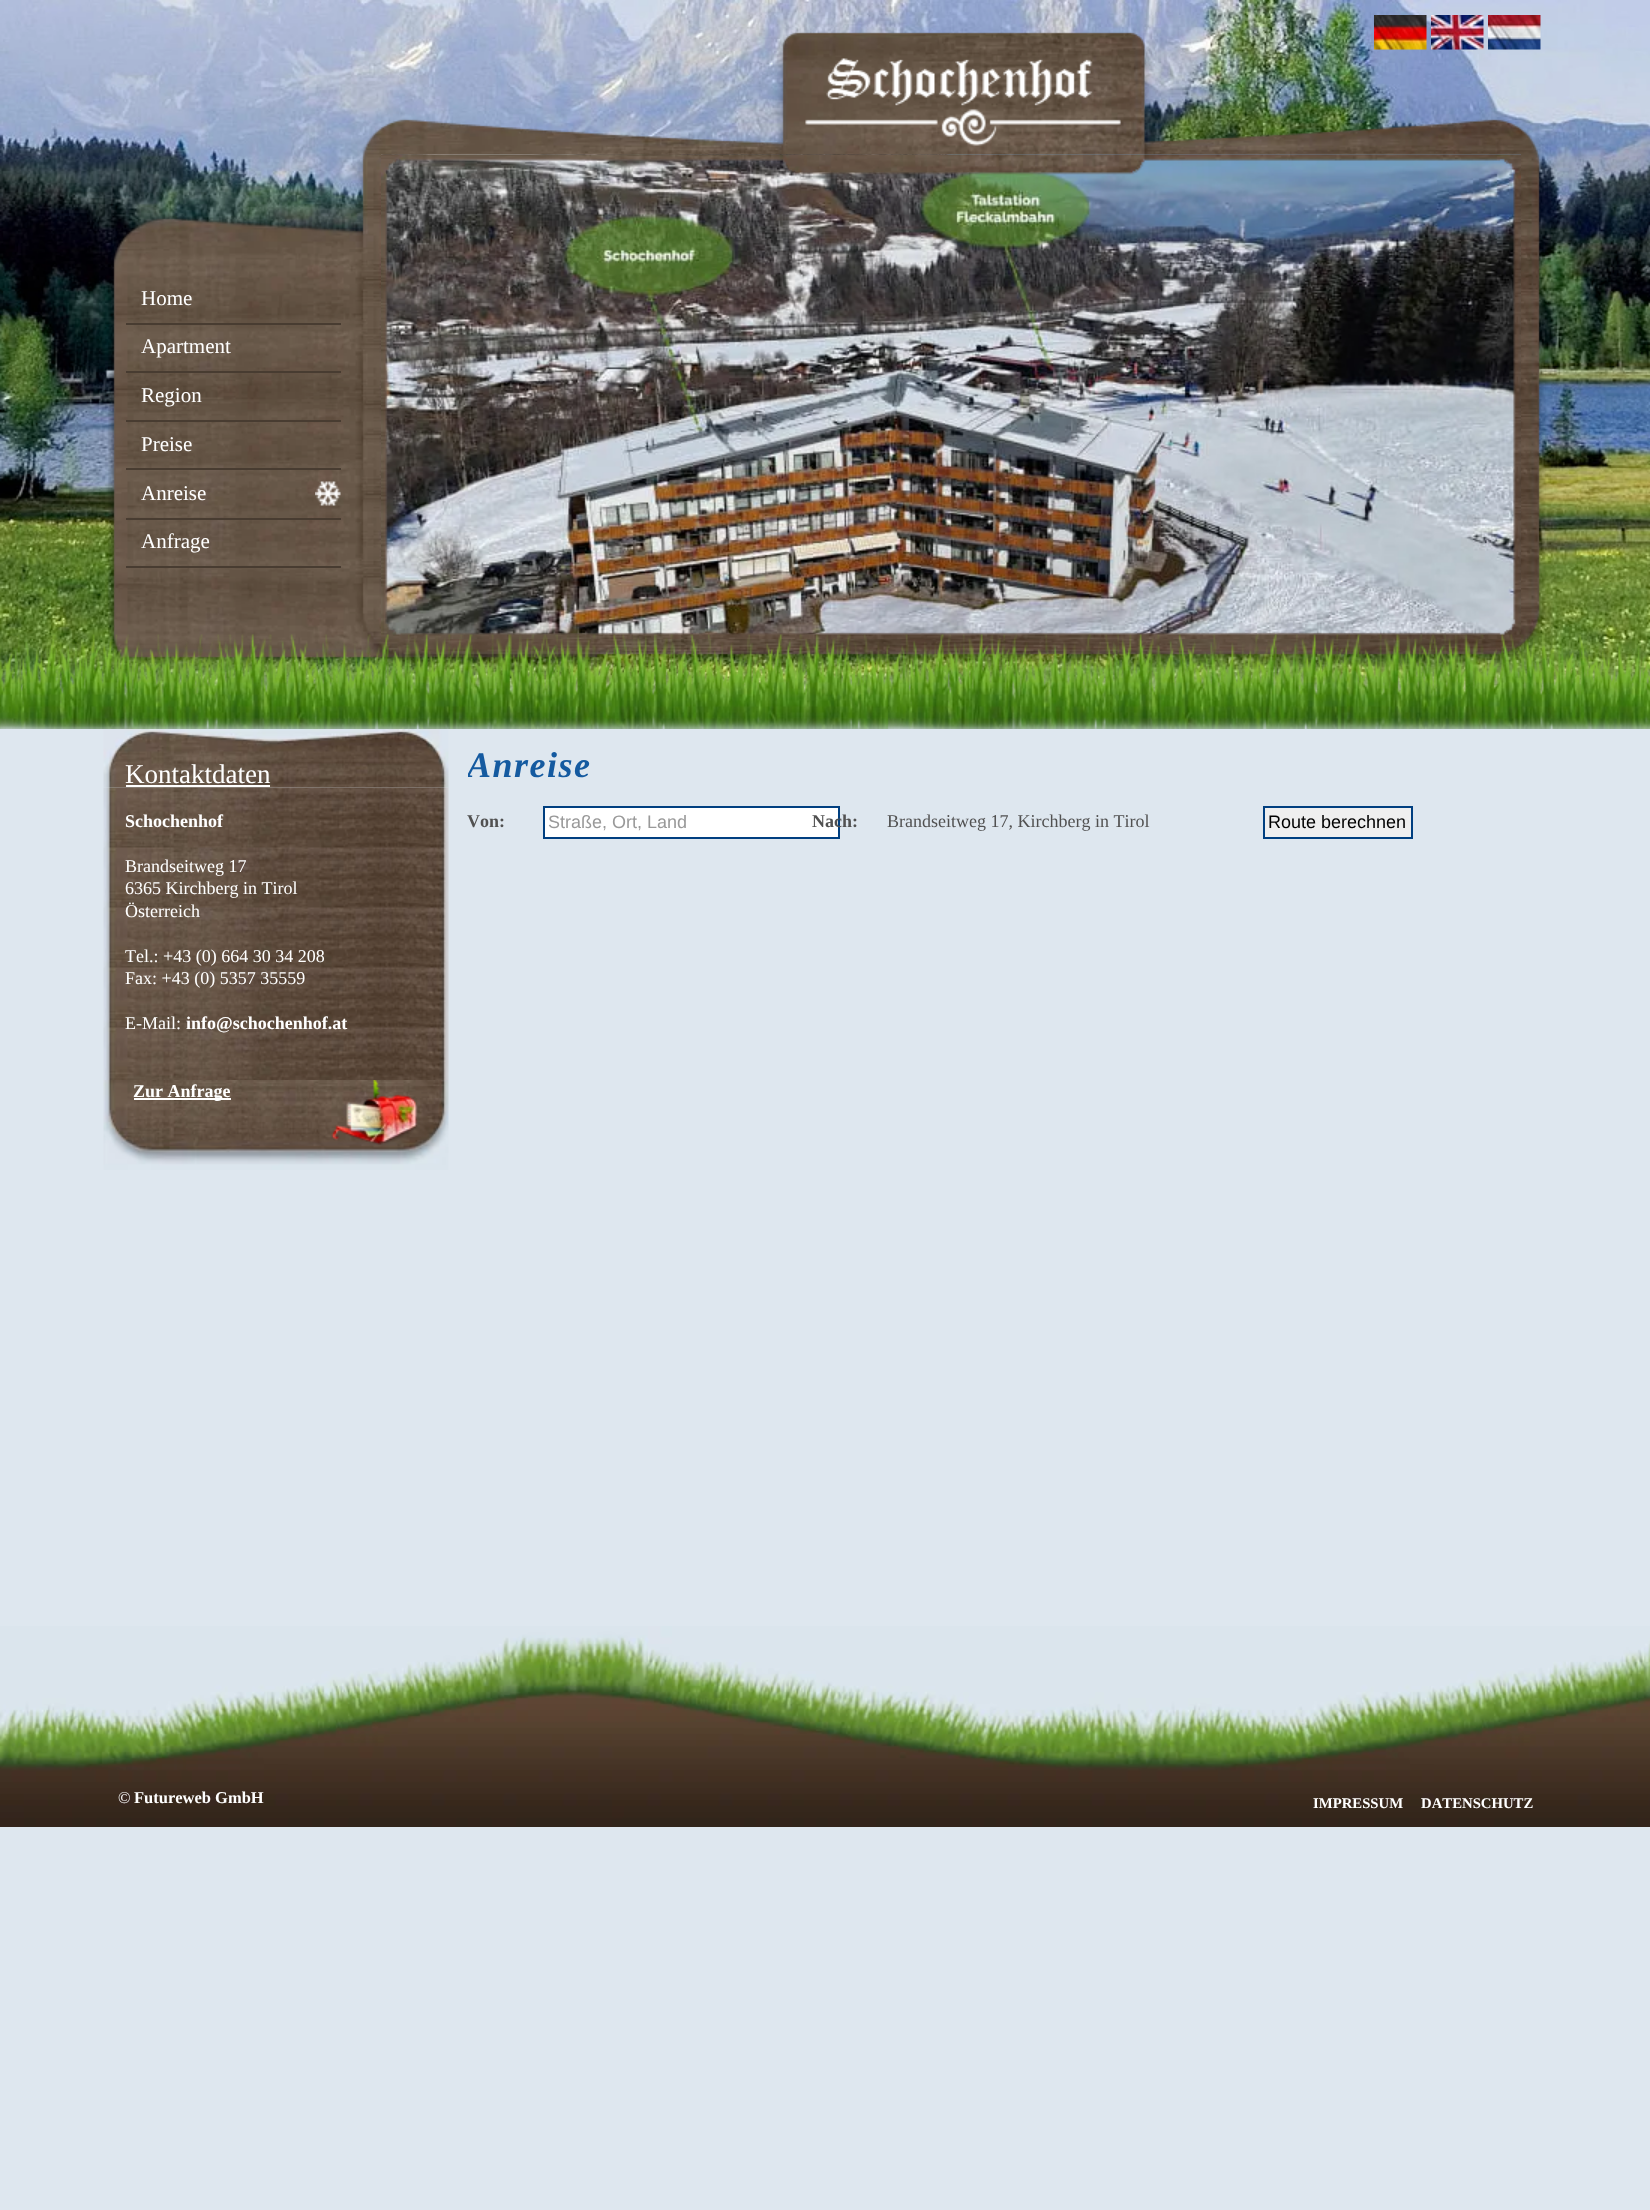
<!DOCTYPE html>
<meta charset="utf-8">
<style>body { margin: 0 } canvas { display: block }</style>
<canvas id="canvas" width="1650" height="2210"></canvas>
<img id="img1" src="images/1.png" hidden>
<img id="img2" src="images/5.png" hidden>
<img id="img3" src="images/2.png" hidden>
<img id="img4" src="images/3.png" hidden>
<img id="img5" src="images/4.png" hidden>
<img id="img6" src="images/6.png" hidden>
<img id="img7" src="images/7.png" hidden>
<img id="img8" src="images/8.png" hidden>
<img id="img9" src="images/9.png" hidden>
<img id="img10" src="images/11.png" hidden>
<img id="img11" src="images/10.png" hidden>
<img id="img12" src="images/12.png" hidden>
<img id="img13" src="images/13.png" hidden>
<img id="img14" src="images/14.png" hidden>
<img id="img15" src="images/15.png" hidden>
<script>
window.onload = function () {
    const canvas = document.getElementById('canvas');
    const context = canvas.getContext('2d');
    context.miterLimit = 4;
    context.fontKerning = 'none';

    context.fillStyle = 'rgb(222, 231, 239)';
    context.fillRect(0, 0, 1650, 2210);
    context.drawImage(document.getElementById('img1'), 0, 0, 1650, 705);
    context.drawImage(document.getElementById('img2'), 108, 32, 1438, 635);
    context.drawImage(document.getElementById('img3'), 1374, 15, 53, 35);
    context.drawImage(document.getElementById('img4'), 1431, 15, 53, 35);
    context.drawImage(document.getElementById('img5'), 1488, 15, 53, 35);
    context.drawImage(document.getElementById('img6'), 805, 58, 316, 88);
    context.fillStyle = 'rgb(72, 60, 49)';
    context.fillRect(126, 323, 215, 2);
    context.fillRect(126, 371, 215, 2);
    context.fillRect(126, 420, 215, 2);
    context.fillRect(126, 468, 215, 2);
    context.drawImage(document.getElementById('img7'), 315, 481, 26, 25);
    context.fillRect(126, 518, 215, 2);
    context.fillRect(126, 566, 215, 2);
    context.drawImage(document.getElementById('img8'), 381, 154, 1140, 481);
    context.drawImage(document.getElementById('img9'), 381, 154, 1140, 485);
    context.drawImage(document.getElementById('img10'), 103, 727, 346, 61);
    context.drawImage(document.getElementById('img11'), 0, 634, 1650, 95);
    context.fillStyle = 'rgb(255, 255, 255)';
    context.fillRect(126, 785, 144, 2);
    context.drawImage(document.getElementById('img12'), 103, 787, 346, 293);
    context.drawImage(document.getElementById('img13'), 103, 1080, 346, 90);
    context.drawImage(document.getElementById('img14'), 331, 1080, 87, 65);
    context.fillRect(134, 1098, 97, 2);
    context.beginPath();
    context.rect(544, 807, 295, 31);
    context.fill();
    context.strokeStyle = 'rgb(0, 63, 128)';
    context.lineWidth = 2;
    context.stroke();
    context.fillStyle = 'rgb(239, 239, 239)';
    context.beginPath();
    context.rect(1264, 807, 148, 31);
    context.fill();
    context.stroke();
    context.drawImage(document.getElementById('img15'), 0, 1626, 1650, 201);
    context.font = '21px Liberation Serif';
    context.fillStyle = 'rgb(255, 255, 255)';
    context.fillText('Home', 141, 305);
    context.fillText('Apartment', 141, 353);
    context.fillText('Region', 141, 402);
    context.fillText('Preise', 141, 451);
    context.fillText('Anreise', 141, 500);
    context.fillText('Anfrage', 141, 548);
    context.font = '27px Liberation Serif';
    context.fillText('Kontaktdaten', 125, 783);
    context.font = 'bold 18px Liberation Serif';
    context.fillText('Schochenhof', 125, 827);
    context.font = '18px Liberation Serif';
    context.fillText('Brandseitweg 17', 125, 872);
    context.fillText('6365 Kirchberg in Tirol', 125, 894);
    context.fillText('Österreich', 125, 917);
    context.fillText('Tel.: +43 (0) 664 30 34 208', 125, 962);
    context.fillText('Fax: +43 (0) 5357 35559', 125, 984);
    context.fillText('E-Mail:', 125, 1029);
    context.font = 'bold 18px Liberation Serif';
    context.fillText('info@schochenhof.at', 186, 1029);
    context.fillText('Zur Anfrage', 133, 1097);
    context.save();
    context.beginPath();
    context.rect(468, 728, 1050, 895);
    context.clip();
    context.letterSpacing = '1.5px';
    context.font = 'italic bold 36px Liberation Serif';
    context.fillStyle = 'rgb(20, 90, 160)';
    context.fillText('Anreise', 467, 777);
    context.restore();
    context.fillStyle = 'rgb(81, 81, 81)';
    context.fillText('Von:', 467, 827);
    context.font = '18px Liberation Sans';
    context.fillStyle = 'rgb(153, 153, 153)';
    context.fillText('Straße, Ort, Land', 548, 828);
    context.font = 'bold 18px Liberation Serif';
    context.fillStyle = 'rgb(81, 81, 81)';
    context.fillText('Nach:', 812, 827);
    context.font = '18px Liberation Serif';
    context.fillText('Brandseitweg 17, Kirchberg in Tirol', 887, 827);
    context.font = '18px Liberation Sans';
    context.fillStyle = 'rgb(0, 0, 0)';
    context.fillText('Route berechnen', 1268, 828);
    context.font = '16.5px Liberation Serif';
    context.fillStyle = 'rgb(255, 255, 255)';
    context.fillText('©', 118, 1803);
    context.font = 'bold 16.5px Liberation Serif';
    context.fillText('Futureweb GmbH', 134, 1803);
    context.font = 'bold 14.75px Liberation Serif';
    context.fillText('IMPRESSUM', 1313, 1808);
    context.fillText('DATENSCHUTZ', 1421, 1808);
};
</script>
